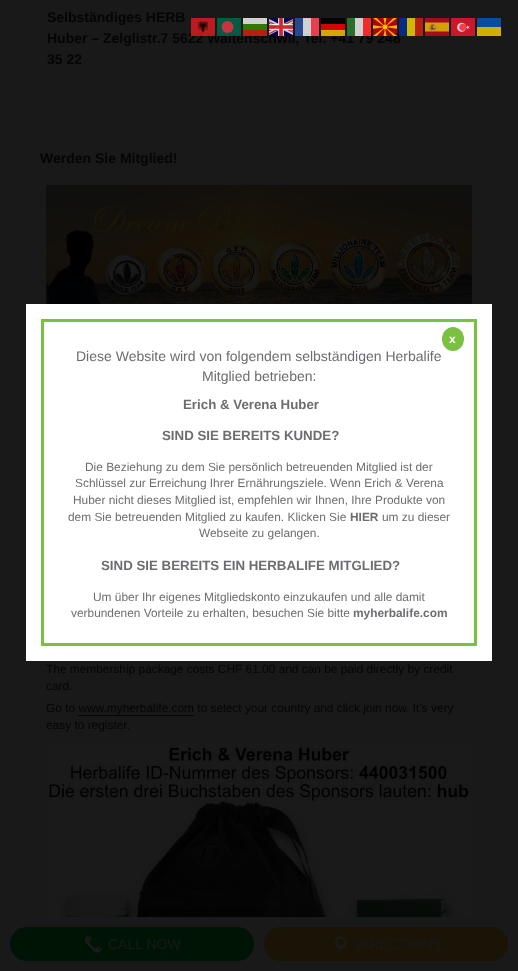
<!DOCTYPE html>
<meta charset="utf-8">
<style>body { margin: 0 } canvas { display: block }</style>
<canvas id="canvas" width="518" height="971"></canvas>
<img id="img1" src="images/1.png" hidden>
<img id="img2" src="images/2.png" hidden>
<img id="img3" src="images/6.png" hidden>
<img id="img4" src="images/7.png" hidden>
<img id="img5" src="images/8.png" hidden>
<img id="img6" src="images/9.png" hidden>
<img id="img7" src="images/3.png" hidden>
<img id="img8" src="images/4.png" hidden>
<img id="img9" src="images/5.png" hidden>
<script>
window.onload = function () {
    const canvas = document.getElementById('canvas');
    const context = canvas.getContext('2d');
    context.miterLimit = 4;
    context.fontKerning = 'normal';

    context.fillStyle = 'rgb(25, 25, 25)';
    context.fillRect(0, 0, 518, 971);
    context.drawImage(document.getElementById('img1'), 46, 185, 426, 119);
    context.fillStyle = 'rgb(5, 5, 5)';
    context.fillRect(78, 715, 116, 1);
    context.drawImage(document.getElementById('img2'), 46, 744, 426, 173);
    context.fillStyle = 'rgb(255, 255, 255)';
    context.fillRect(26, 304, 466, 357);
    context.strokeStyle = 'rgb(122, 193, 66)';
    context.lineWidth = 3;
    context.strokeRect(42.5, 320.5, 433, 324);
    context.fillStyle = 'rgb(122, 193, 66)';
    context.beginPath();
    context.ellipse(453, 339, 11, 12, 0, 0, 2 * Math.PI);
    context.fill();
    context.fillStyle = 'rgba(255, 255, 255, 0.8)';
    context.fillRect(243, 18, 24, 6);
    context.fillStyle = 'rgba(0, 0, 0, 0.8)';
    context.fillRect(321, 18, 24, 6);
    context.fillStyle = 'rgba(49, 148, 0, 0.8)';
    context.fillRect(243, 24, 24, 6);
    context.fillStyle = 'rgb(209, 5, 5)';
    context.fillRect(321, 24, 24, 6);
    context.fillStyle = 'rgb(209, 183, 5)';
    context.fillRect(407, 18, 8, 18);
    context.fillStyle = 'rgb(183, 32, 18)';
    context.fillRect(415, 18, 8, 18);
    context.drawImage(document.getElementById('img3'), 425, 18, 24, 18);
    context.drawImage(document.getElementById('img4'), 451, 18, 24, 18);
    context.fillStyle = 'rgb(5, 78, 155)';
    context.fillRect(477, 18, 24, 9);
    context.fillStyle = 'rgb(209, 176, 5)';
    context.fillRect(477, 27, 24, 9);
    context.fillStyle = 'rgb(0, 20, 5)';
    context.beginPath();
    context.roundRect(10, 927, 244, 34, 17);
    context.fill();
    context.drawImage(document.getElementById('img5'), 84, 934, 19, 19);
    context.fillStyle = 'rgb(25, 20, 5)';
    context.beginPath();
    context.roundRect(264, 927, 244, 34, 17);
    context.fill();
    context.drawImage(document.getElementById('img6'), 334, 936, 13, 16);
    context.font = 'bold 14px Liberation Sans';
    context.fillStyle = 'rgb(5, 5, 5)';
    context.fillText('Selbständiges HERB', 47, 22);
    context.fillText('Huber – Zelglistr.7 5622 Waltenschwil, Tel. +41 79 248', 47, 43);
    context.fillText('35 22', 47, 64);
    context.fillText('Werden Sie Mitglied!', 40, 163);
    context.font = '11.9px Liberation Sans';
    context.fillText('The membership package costs CHF 61.00 and can be paid directly by credit', 46, 673);
    context.fillText('card.', 46, 690);
    context.fillText('Go to www.myherbalife.com to select your country and click join now. It’s very', 46, 712);
    context.fillText('easy to register.', 46, 729);
    context.font = 'bold 12px Liberation Sans';
    context.fillStyle = 'rgb(255, 255, 255)';
    context.fillText('x', 449, 343);
    context.font = '14px Liberation Sans';
    context.fillStyle = 'rgb(108, 109, 112)';
    context.fillText('Diese Website wird von folgendem selbständigen Herbalife', 76, 361);
    context.fillText('Mitglied betrieben:', 202, 381);
    context.font = 'bold 13.3px Liberation Sans';
    context.fillText('Erich & Verena Huber', 183, 409);
    context.fillText('SIND SIE BEREITS KUNDE?', 162, 440);
    context.font = '11.9px Liberation Sans';
    context.fillText('Die Beziehung zu dem Sie persönlich betreuenden Mitglied ist der', 85, 471);
    context.fillText('Schlüssel zur Erreichung Ihrer Ernährungsziele. Wenn Erich & Verena', 75, 487);
    context.fillText('Huber nicht dieses Mitglied ist, empfehlen wir Ihnen, Ihre Produkte von', 73, 504);
    context.fillText('dem Sie betreuenden Mitglied zu kaufen. Klicken Sie', 68, 521);
    context.font = 'bold 11.9px Liberation Sans';
    context.fillText('HIER', 350, 521);
    context.font = '11.9px Liberation Sans';
    context.fillText('um zu dieser', 382, 521);
    context.fillText('Webseite zu gelangen.', 199, 537);
    context.font = 'bold 13.3px Liberation Sans';
    context.fillText('SIND SIE BEREITS EIN HERBALIFE MITGLIED?', 101, 570);
    context.font = '11.9px Liberation Sans';
    context.fillText('Um über Ihr eigenes Mitgliedskonto einzukaufen und alle damit', 93, 601);
    context.fillText('verbundenen Vorteile zu erhalten, besuchen Sie bitte', 71, 617);
    context.font = 'bold 11.9px Liberation Sans';
    context.fillText('myherbalife.com', 353, 617);
    context.drawImage(document.getElementById('img7'), 191, 18, 24, 18);
    context.fillStyle = 'rgba(0, 106, 78, 0.8)';
    context.fillRect(217, 18, 24, 18);
    context.drawImage(document.getElementById('img8'), 269, 18, 24, 18);
    context.fillStyle = 'rgba(255, 255, 255, 0.8)';
    context.fillRect(295, 18, 24, 18);
    context.fillStyle = 'rgba(0, 38, 127, 0.8)';
    context.fillRect(295, 18, 8, 18);
    context.fillStyle = 'rgba(243, 24, 48, 0.8)';
    context.fillRect(311, 18, 8, 18);
    context.fillStyle = 'rgba(255, 255, 255, 0.8)';
    context.fillRect(347, 18, 24, 18);
    context.fillStyle = 'rgb(196, 52, 65)';
    context.beginPath();
    context.arc(227.5, 27, 6, 0, 2 * Math.PI);
    context.fill();
    context.fillStyle = 'rgba(0, 87, 0, 0.8)';
    context.fillRect(347, 18, 8, 18);
    context.fillStyle = 'rgba(252, 0, 0, 0.8)';
    context.fillRect(363, 18, 8, 18);
    context.drawImage(document.getElementById('img9'), 373, 18, 24, 18);
    context.fillStyle = 'rgba(0, 49, 156, 0.8)';
    context.fillRect(399, 18, 8, 18);
    context.fillStyle = 'rgba(222, 33, 16, 0.8)';
    context.fillRect(243, 30, 24, 6);
    context.fillStyle = 'rgba(255, 204, 0, 0.8)';
    context.fillRect(321, 30, 24, 6);
    context.font = '14px Liberation Sans';
    context.fillStyle = 'rgb(25, 25, 25)';
    context.fillText('CALL NOW', 108, 949);
    context.fillText('DIRECTIONS', 355, 949);
};
</script>
